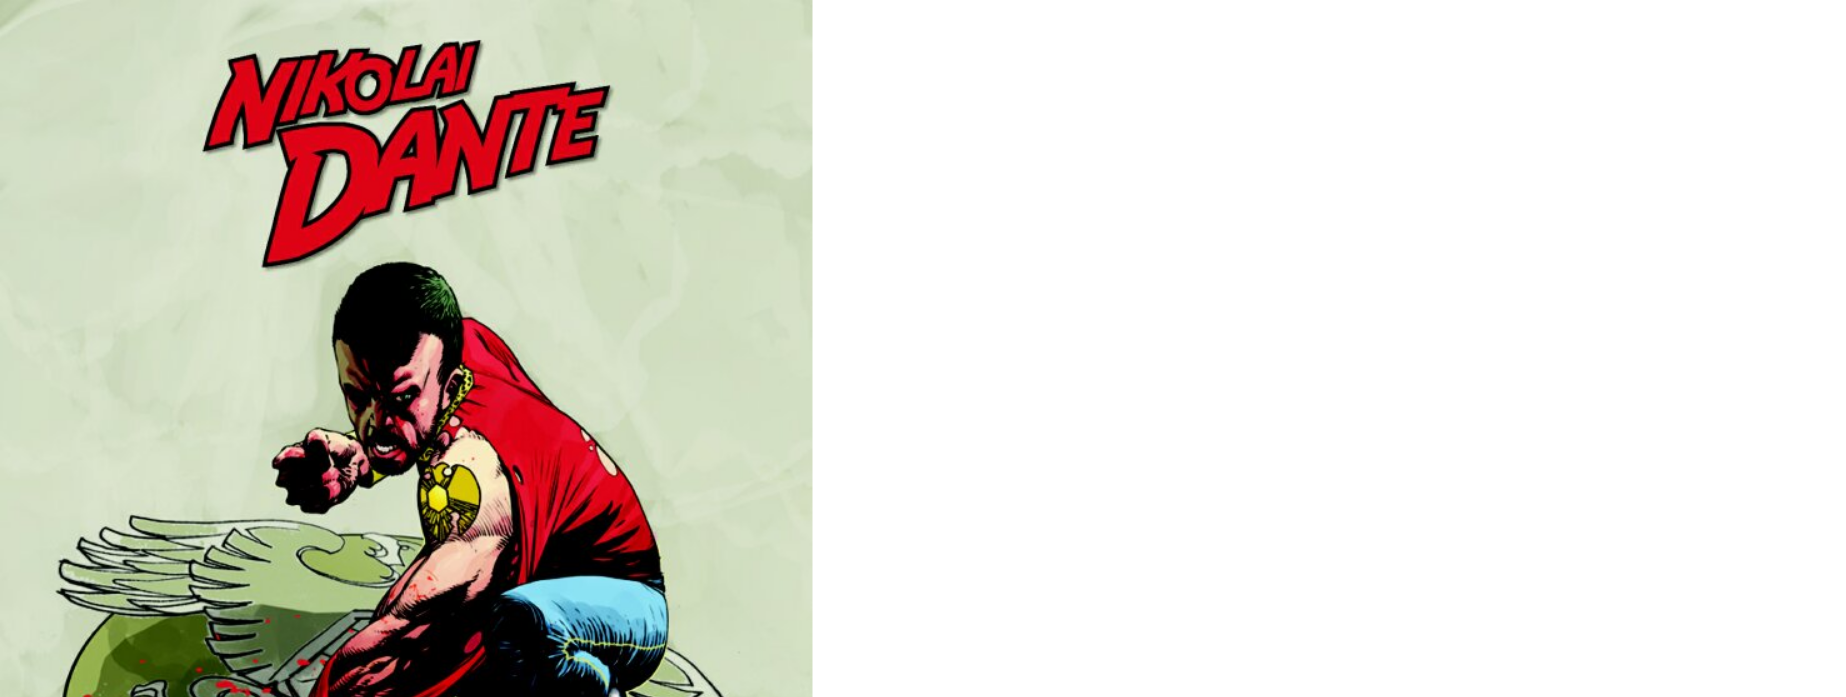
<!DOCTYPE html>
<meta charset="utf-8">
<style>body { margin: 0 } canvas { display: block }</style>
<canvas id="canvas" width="1846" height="697"></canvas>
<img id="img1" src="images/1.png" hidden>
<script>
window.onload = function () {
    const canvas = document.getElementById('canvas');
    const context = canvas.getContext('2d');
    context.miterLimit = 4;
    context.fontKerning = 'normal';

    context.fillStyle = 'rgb(255, 255, 255)';
    context.fillRect(0, 0, 1846, 697);
    context.drawImage(document.getElementById('img1'), 0, 0, 813, 697);
};
</script>
